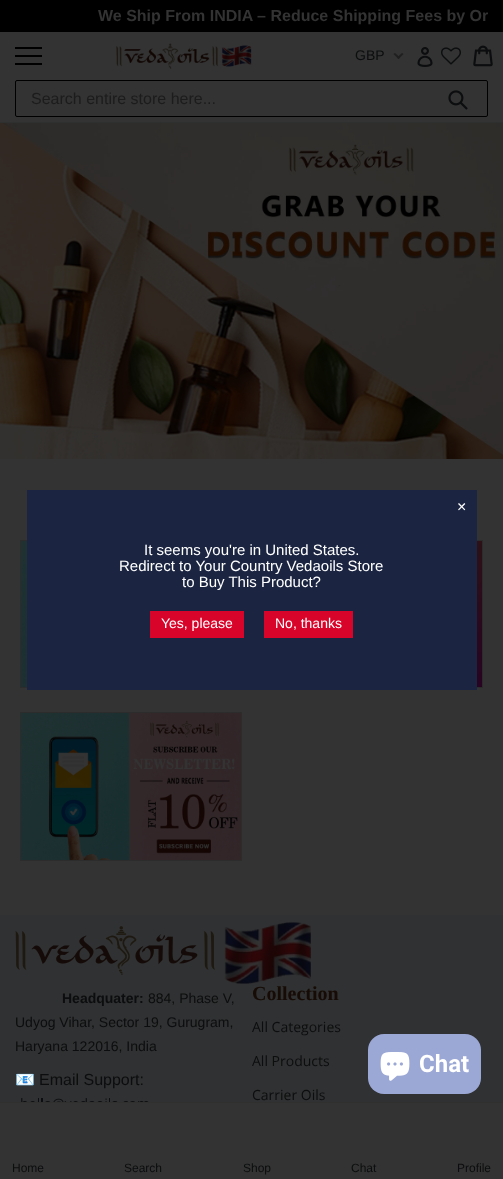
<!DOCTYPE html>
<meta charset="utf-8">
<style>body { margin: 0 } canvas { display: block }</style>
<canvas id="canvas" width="503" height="1179"></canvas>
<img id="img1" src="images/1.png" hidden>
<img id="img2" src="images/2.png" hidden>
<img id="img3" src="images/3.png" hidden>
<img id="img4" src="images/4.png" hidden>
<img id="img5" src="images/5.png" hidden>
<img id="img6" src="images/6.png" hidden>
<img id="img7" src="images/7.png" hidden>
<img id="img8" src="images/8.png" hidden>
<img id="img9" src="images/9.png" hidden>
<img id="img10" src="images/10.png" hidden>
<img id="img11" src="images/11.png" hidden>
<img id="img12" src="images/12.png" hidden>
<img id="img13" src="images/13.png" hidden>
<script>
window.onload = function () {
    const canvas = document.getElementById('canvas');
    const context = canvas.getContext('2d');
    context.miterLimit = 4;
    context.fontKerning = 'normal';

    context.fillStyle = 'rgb(51, 51, 51)';
    context.fillRect(0, 0, 503, 1179);
    context.fillStyle = 'rgb(0, 0, 0)';
    context.fillRect(0, 0, 503, 32);
    context.fillStyle = 'rgb(46, 47, 47)';
    context.fillRect(0, 122, 503, 1);
    context.fillStyle = 'rgb(0, 0, 0)';
    context.fillRect(15, 47, 27, 2);
    context.fillRect(15, 55, 27, 2);
    context.fillRect(15, 63, 27, 2);
    context.drawImage(document.getElementById('img1'), 116, 43, 136, 26);
    context.fillStyle = 'rgb(31, 31, 31)';
    context.beginPath();
    context.moveTo(402, 53);
    context.lineTo(403.5, 54);
    context.lineTo(398.5, 59);
    context.lineTo(397, 57.5);
    context.closePath();
    context.fill();
    context.beginPath();
    context.moveTo(395, 53);
    context.lineTo(400, 57.5);
    context.lineTo(398.5, 59);
    context.lineTo(393.5, 54);
    context.closePath();
    context.fill();
    context.drawImage(document.getElementById('img2'), 417, 47, 16, 20);
    context.drawImage(document.getElementById('img3'), 441, 47, 20, 18);
    context.drawImage(document.getElementById('img4'), 473, 45, 20, 22);
    context.beginPath();
    context.roundRect(15.5, 80.5, 472, 36, 1.5);
    context.strokeStyle = 'rgb(0, 0, 0)';
    context.stroke();
    context.drawImage(document.getElementById('img5'), 448, 90, 20, 20);
    context.drawImage(document.getElementById('img6'), 0, 123, 503, 336);
    context.strokeStyle = 'rgb(44, 44, 44)';
    context.strokeRect(20.5, 540.5, 221, 147);
    context.drawImage(document.getElementById('img7'), 21, 541, 6, 146);
    context.strokeRect(261.5, 540.5, 221, 147);
    context.drawImage(document.getElementById('img8'), 477, 541, 5, 146);
    context.strokeRect(20.5, 712.5, 221, 148);
    context.drawImage(document.getElementById('img9'), 21, 713, 220, 147);
    context.fillStyle = 'rgb(27, 37, 66)';
    context.fillRect(27, 490, 450, 200);
    context.fillStyle = 'rgb(217, 4, 41)';
    context.fillRect(150, 611, 94, 27);
    context.fillRect(264, 611, 89, 27);
    context.fillStyle = 'rgb(48, 49, 50)';
    context.fillRect(0, 915, 503, 187);
    context.drawImage(document.getElementById('img10'), 15, 926, 200, 49);
    context.drawImage(document.getElementById('img11'), 224, 922, 87, 62);
    context.drawImage(document.getElementById('img12'), 21, 1098, 128, 4);
    context.fillStyle = 'rgb(48, 48, 47)';
    context.fillRect(0, 1102, 503, 1);
    context.fillStyle = 'rgb(155, 167, 213)';
    context.beginPath();
    context.roundRect(368, 1034, 113, 60, 16);
    context.fill();
    context.drawImage(document.getElementById('img13'), 380, 1052, 30, 29);
    context.font = 'bold 16px Liberation Sans';
    context.fillStyle = 'rgb(51, 51, 51)';
    context.fillText('We Ship From INDIA – Reduce Shipping Fees by Or', 98, 21);
    context.font = '14px Liberation Sans';
    context.fillStyle = 'rgb(12, 13, 14)';
    context.fillText('GBP', 355, 60);
    context.font = '16px Liberation Sans';
    context.fillStyle = 'rgb(28, 28, 29)';
    context.fillText('Search entire store here...', 31, 104);
    context.fillStyle = 'rgb(255, 255, 255)';
    context.fillText('×', 457, 512);
    context.font = '15px Liberation Sans';
    context.fillText('It seems you\'re in United States.', 144, 555);
    context.fillText('Redirect to Your Country Vedaoils Store', 119, 571);
    context.fillText('to Buy This Product?', 182, 587);
    context.font = '14px Liberation Sans';
    context.fillText('Yes, please', 161, 628);
    context.fillText('No, thanks', 275, 628);
    context.font = 'bold 14px Liberation Sans';
    context.fillStyle = 'rgb(12, 13, 14)';
    context.fillText('Headquater:', 62, 1003);
    context.font = '14px Liberation Sans';
    context.fillText('884, Phase V,', 148, 1003);
    context.fillText('Udyog Vihar, Sector 19, Gurugram,', 15, 1027);
    context.fillText('Haryana 122016, India', 15, 1051);
    context.font = '16px Noto Color Emoji';
    context.fillText('📧', 15, 1085);
    context.font = '16px Liberation Sans';
    context.fillText('Email Support:', 39, 1085);
    context.font = 'bold 20px Liberation Serif';
    context.fillStyle = 'rgb(22, 11, 5)';
    context.fillText('Collection', 252, 1000);
    context.font = '14px Open Sans';
    context.fillStyle = 'rgb(12, 13, 14)';
    context.fillText('All Categories', 252, 1032);
    context.fillText('All Products', 252, 1066);
    context.fillText('Carrier Oils', 252, 1100);
    context.font = '12px Liberation Sans';
    context.fillText('Home', 12, 1172);
    context.fillText('Search', 124, 1172);
    context.fillText('Shop', 243, 1172);
    context.fillText('Chat', 351, 1172);
    context.fillText('Proﬁle', 457, 1172);
    context.font = 'bold 24px Roboto';
    context.fillStyle = 'rgb(255, 255, 255)';
    context.fillText('Chat', 419, 1072);
};
</script>
